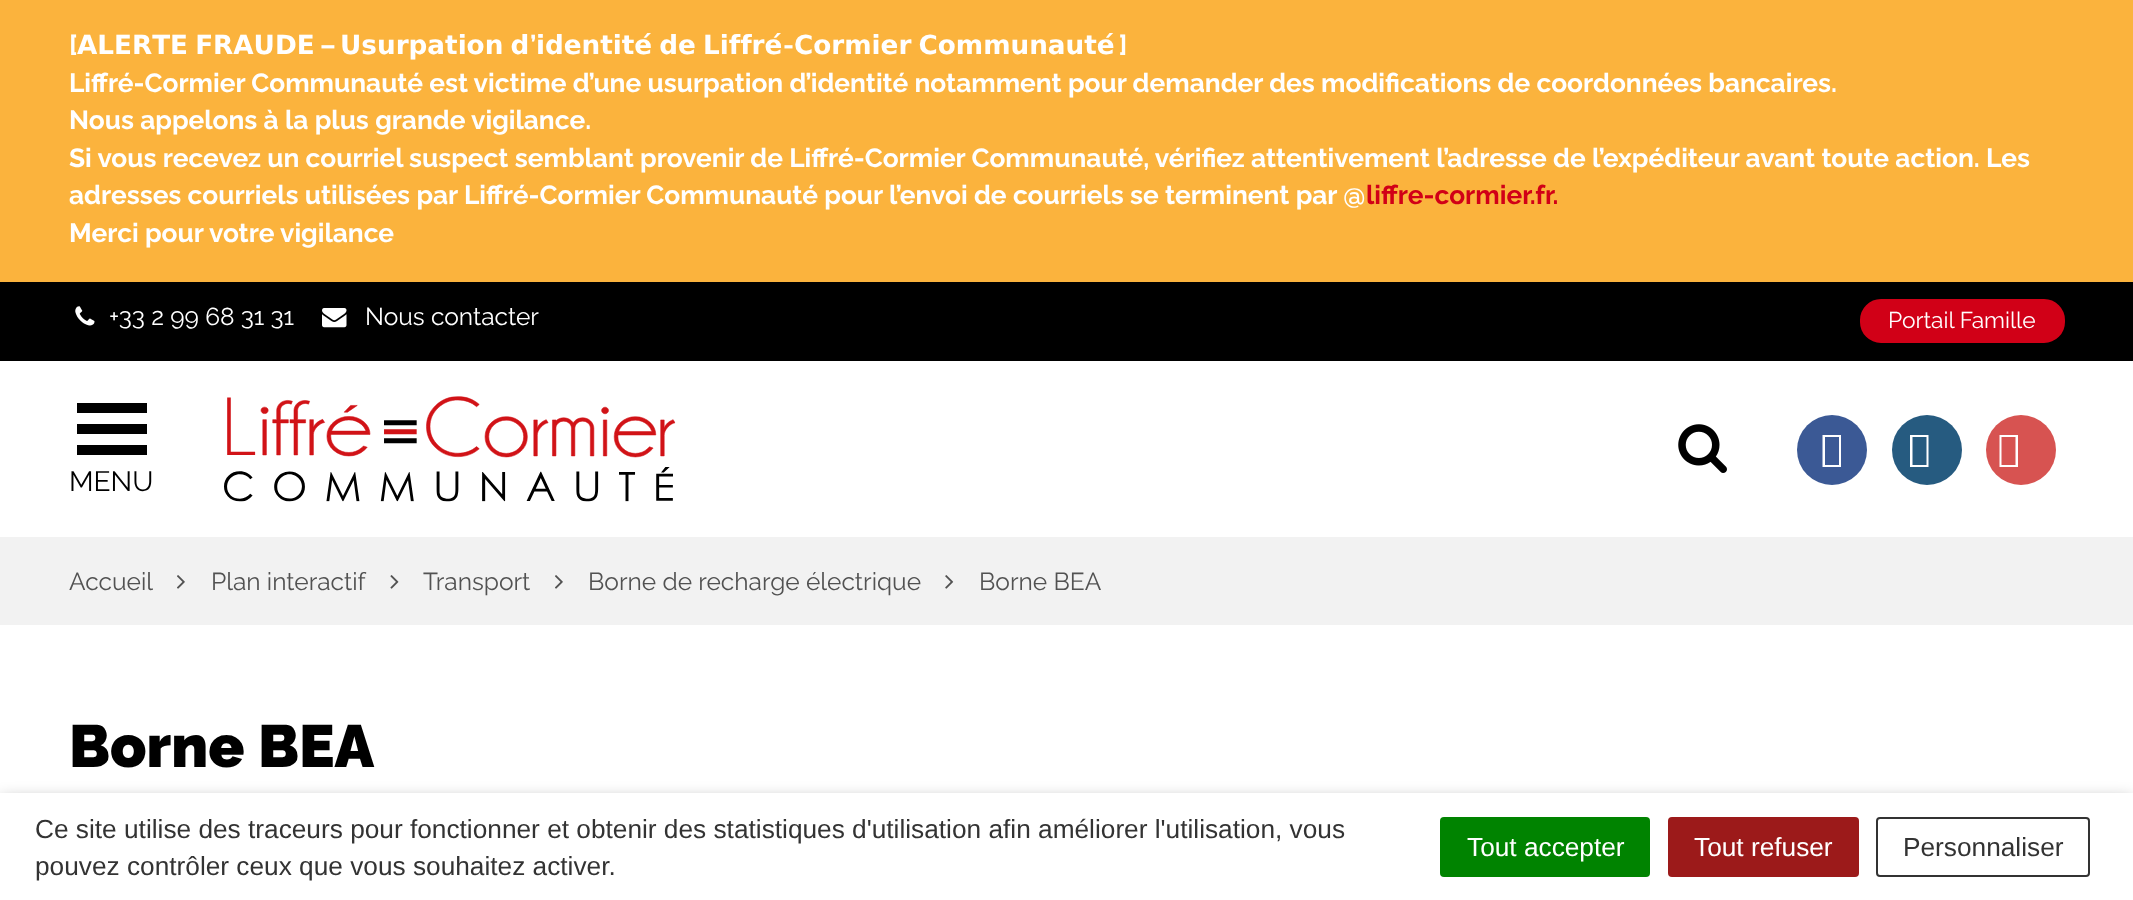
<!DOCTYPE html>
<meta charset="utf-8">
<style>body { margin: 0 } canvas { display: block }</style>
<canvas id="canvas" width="2133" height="900"></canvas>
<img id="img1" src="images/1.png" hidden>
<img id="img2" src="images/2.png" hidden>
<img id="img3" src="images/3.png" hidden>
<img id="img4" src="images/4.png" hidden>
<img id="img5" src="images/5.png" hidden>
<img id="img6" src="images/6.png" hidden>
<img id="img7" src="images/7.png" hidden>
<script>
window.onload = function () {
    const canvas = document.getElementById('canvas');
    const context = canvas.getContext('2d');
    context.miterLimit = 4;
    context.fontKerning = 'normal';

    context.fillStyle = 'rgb(255, 255, 255)';
    context.fillRect(0, 0, 2133, 900);
    context.fillStyle = 'rgb(251, 179, 61)';
    context.fillRect(0, 0, 2133, 282);
    context.fillStyle = 'rgb(0, 0, 0)';
    context.fillRect(0, 282, 2133, 79);
    context.drawImage(document.getElementById('img1'), 75, 306, 20, 20);
    context.drawImage(document.getElementById('img2'), 322, 308, 25, 20);
    context.fillStyle = 'rgb(209, 0, 23)';
    context.beginPath();
    context.roundRect(1861, 300, 203, 42, 20);
    context.fill();
    context.strokeStyle = 'rgb(209, 0, 23)';
    context.lineWidth = 2;
    context.stroke();
    context.drawImage(document.getElementById('img3'), 224, 396, 452, 106);
    context.drawImage(document.getElementById('img4'), 1678, 424, 49, 49);
    context.fillStyle = 'rgb(59, 89, 149)';
    context.beginPath();
    context.arc(1832, 450, 35, 0, 2 * Math.PI);
    context.fill();
    context.fillStyle = 'rgb(255, 255, 255)';
    context.beginPath();
    context.moveTo(1822.5, 467);
    context.lineTo(1822.5, 435);
    context.lineTo(1841, 435);
    context.lineTo(1841, 467);
    context.closePath();
    context.moveTo(1825, 465);
    context.lineTo(1839, 465);
    context.lineTo(1839, 437);
    context.lineTo(1825, 437);
    context.closePath();
    context.fill();
    context.fillStyle = 'rgb(38, 91, 128)';
    context.beginPath();
    context.arc(1927, 450, 35, 0, 2 * Math.PI);
    context.fill();
    context.fillStyle = 'rgb(255, 255, 255)';
    context.beginPath();
    context.moveTo(1910, 467);
    context.lineTo(1910, 435);
    context.lineTo(1928.5, 435);
    context.lineTo(1928.5, 467);
    context.closePath();
    context.moveTo(1912.5, 465);
    context.lineTo(1926.5, 465);
    context.lineTo(1926.5, 437);
    context.lineTo(1912.5, 437);
    context.closePath();
    context.fill();
    context.fillStyle = 'rgb(215, 83, 81)';
    context.beginPath();
    context.arc(2021, 450, 35, 0, 2 * Math.PI);
    context.fill();
    context.fillStyle = 'rgb(255, 255, 255)';
    context.beginPath();
    context.moveTo(1999.5, 467);
    context.lineTo(1999.5, 435);
    context.lineTo(2018, 435);
    context.lineTo(2018, 467);
    context.closePath();
    context.moveTo(2001.5, 465);
    context.lineTo(2015.5, 465);
    context.lineTo(2015.5, 437);
    context.lineTo(2001.5, 437);
    context.closePath();
    context.fill();
    context.fillStyle = 'rgb(0, 0, 0)';
    context.fillRect(77, 403, 70, 10);
    context.fillRect(77, 424, 70, 10);
    context.fillRect(77, 445, 70, 10);
    context.fillStyle = 'rgb(242, 242, 242)';
    context.fillRect(0, 537, 2133, 88);
    context.drawImage(document.getElementById('img5'), 177, 575, 8, 14);
    context.drawImage(document.getElementById('img6'), 390, 575, 9, 14);
    context.drawImage(document.getElementById('img5'), 555, 575, 8, 14);
    context.drawImage(document.getElementById('img7'), 945, 575, 9, 14);
    context.fillStyle = 'rgba(0, 0, 0, 0.5)';
    context.filter = 'blur(9px)';
    context.beginPath();
    context.rect(0, 802, 2133, 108);
    context.fill();
    context.filter = 'none';
    context.fillStyle = 'rgb(255, 255, 255)';
    context.fillRect(0, 793, 2133, 107);
    context.fillStyle = 'rgb(0, 131, 0)';
    context.beginPath();
    context.roundRect(1440, 817, 210, 60, 4);
    context.fill();
    context.fillStyle = 'rgb(156, 26, 26)';
    context.beginPath();
    context.roundRect(1668, 817, 191, 60, 4);
    context.fill();
    context.beginPath();
    context.roundRect(1877, 818, 212, 58, 3);
    context.strokeStyle = 'rgb(51, 51, 51)';
    context.stroke();
    context.font = 'bold 26.25px Raleway';
    context.fillStyle = 'rgb(255, 255, 255)';
    context.fillText('[', 69, 54);
    context.wordSpacing = '-2px';
    context.font = 'bold 26.25px DejaVu Sans';
    context.fillText('𝗔𝗟𝗘𝗥𝗧𝗘 𝗙𝗥𝗔𝗨𝗗𝗘', 77, 54);
    context.wordSpacing = '0px';
    context.font = 'bold 26.25px Raleway';
    context.fillText('–', 320, 54);
    context.wordSpacing = '-2px';
    context.font = 'bold 26.25px DejaVu Sans';
    context.fillText('𝗨𝘀𝘂𝗿𝗽𝗮𝘁𝗶𝗼𝗻 𝗱', 340, 54);
    context.wordSpacing = '0px';
    context.font = 'bold 26.25px Raleway';
    context.fillText('’', 530, 54);
    context.wordSpacing = '-2px';
    context.font = 'bold 26.25px DejaVu Sans';
    context.fillText('𝗶𝗱𝗲𝗻𝘁𝗶𝘁𝗲́ 𝗱𝗲 𝗟𝗶𝗳𝗳𝗿𝗲́', 536, 54);
    context.wordSpacing = '0px';
    context.font = 'bold 26.25px Raleway';
    context.fillText('-', 783, 54);
    context.wordSpacing = '-2px';
    context.font = 'bold 26.25px DejaVu Sans';
    context.fillText('𝗖𝗼𝗿𝗺𝗶𝗲𝗿 𝗖𝗼𝗺𝗺𝘂𝗻𝗮𝘂𝘁𝗲́', 794, 54);
    context.wordSpacing = '0px';
    context.font = 'bold 26.25px Raleway';
    context.fillText(']', 1119, 54);
    context.fillText('Liffré-Cormier Communauté est victime d’une usurpation d’identité notamment pour demander des modifications de coordonnées bancaires.', 69, 92);
    context.fillText('Nous appelons à la plus grande vigilance.', 69, 129);
    context.fillText('Si vous recevez un courriel suspect semblant provenir de Liffré-Cormier Communauté, vérifiez attentivement l’adresse de l’expéditeur avant toute action. Les', 69, 167);
    context.fillText('adresses courriels utilisées par Liffré-Cormier Communauté pour l’envoi de courriels se terminent par @', 69, 204);
    context.fillStyle = 'rgb(209, 0, 23)';
    context.fillText('liffre-cormier.fr.', 1366, 204);
    context.fillStyle = 'rgb(255, 255, 255)';
    context.fillText('Merci pour votre vigilance', 69, 242);
    context.font = '24.5px Raleway';
    context.fillText('+33 2 99 68 31 31', 109, 325);
    context.fillText('Nous contacter', 365, 325);
    context.font = '22.75px Raleway';
    context.fillText('Portail Famille', 1888, 328);
    context.font = '28px Raleway';
    context.fillStyle = 'rgb(0, 0, 0)';
    context.fillText('MENU', 69, 491);
    context.font = '24.5px Raleway';
    context.fillStyle = 'rgb(82, 82, 82)';
    context.fillText('Accueil', 69, 590);
    context.fillText('Plan interactif', 211, 590);
    context.fillText('Transport', 423, 590);
    context.fillText('Borne de recharge électrique', 588, 590);
    context.fillText('Borne BEA', 979, 590);
    context.font = '900 59.5px Raleway';
    context.fillStyle = 'rgb(0, 0, 0)';
    context.fillText('Borne BEA', 69, 767);
    context.font = '26.25px Liberation Sans';
    context.fillStyle = 'rgb(51, 51, 51)';
    context.fillText('Ce site utilise des traceurs pour fonctionner et obtenir des statistiques d\'utilisation afin améliorer l\'utilisation, vous', 35, 838);
    context.fillText('pouvez contrôler ceux que vous souhaitez activer.', 35, 875);
    context.fillStyle = 'rgb(255, 255, 255)';
    context.fillText('Tout accepter', 1467, 856);
    context.fillText('Tout refuser', 1694, 856);
    context.fillStyle = 'rgb(51, 51, 51)';
    context.fillText('Personnaliser', 1903, 856);
};
</script>
